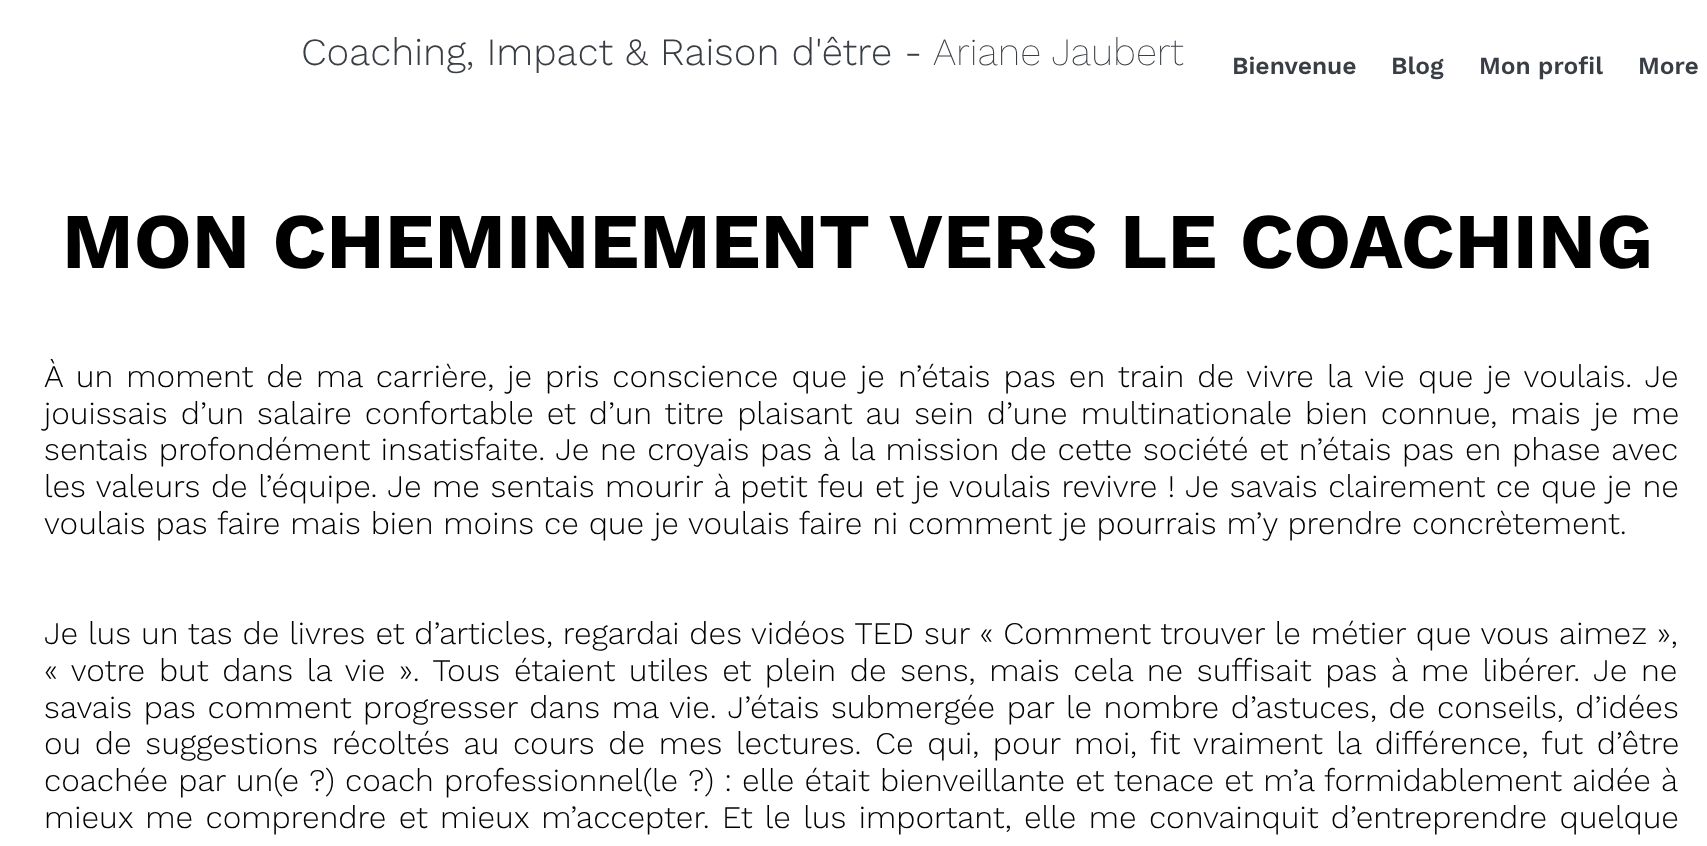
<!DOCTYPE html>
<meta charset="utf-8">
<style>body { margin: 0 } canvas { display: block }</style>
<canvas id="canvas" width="1707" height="846"></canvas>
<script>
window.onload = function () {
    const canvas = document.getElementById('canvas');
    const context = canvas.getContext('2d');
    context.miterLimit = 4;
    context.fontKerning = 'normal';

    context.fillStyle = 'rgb(255, 255, 255)';
    context.fillRect(0, 0, 1707, 846);
    context.font = '300 38.5px Work Sans';
    context.fillStyle = 'rgb(57, 62, 68)';
    context.fillText('Coaching, Impact & Raison d\'être -', 301, 65);
    context.font = '200 38.5px Work Sans';
    context.fillText('Ariane Jaubert', 933, 65);
    context.font = '600 24.5px Work Sans';
    context.fillText('Bienvenue', 1232, 74);
    context.fillText('Blog', 1391, 74);
    context.fillText('Mon profil', 1479, 74);
    context.fillText('More', 1638, 74);
    context.font = 'bold 78.75px Work Sans';
    context.fillStyle = 'rgb(0, 0, 0)';
    context.fillText('MON CHEMINEMENT VERS LE COACHING', 62, 268);
    context.wordSpacing = '3.2px';
    context.font = '300 31.5px Work Sans';
    context.fillText('À un moment de ma carrière, je pris conscience que je n’étais pas en train de vivre la vie que je voulais. Je', 44, 387);
    context.wordSpacing = '3.1px';
    context.fillText('jouissais d’un salaire confortable et d’un titre plaisant au sein d’une multinationale bien connue, mais je me', 44, 424);
    context.wordSpacing = '0.8px';
    context.fillText('sentais profondément insatisfaite. Je ne croyais pas à la mission de cette société et n’étais pas en phase avec', 44, 460);
    context.wordSpacing = '0.7px';
    context.fillText('les valeurs de l’équipe. Je me sentais mourir à petit feu et je voulais revivre ! Je savais clairement ce que je ne', 44, 497);
    context.wordSpacing = '0px';
    context.fillText('voulais pas faire mais bien moins ce que je voulais faire ni comment je pourrais m’y prendre concrètement.', 44, 534);
    context.fillText('Je lus un tas de livres et d’articles, regardai des vidéos TED sur « Comment trouver le métier que vous aimez »,', 44, 644);
    context.wordSpacing = '3.8px';
    context.fillText('« votre but dans la vie ». Tous étaient utiles et plein de sens, mais cela ne suffisait pas à me libérer. Je ne', 44, 681);
    context.wordSpacing = '1.75px';
    context.fillText('savais pas comment progresser dans ma vie. J’étais submergée par le nombre d’astuces, de conseils, d’idées', 44, 718);
    context.wordSpacing = '3.75px';
    context.fillText('ou de suggestions récoltés au cours de mes lectures. Ce qui, pour moi, fit vraiment la différence, fut d’être', 44, 754);
    context.wordSpacing = '0.3px';
    context.fillText('coachée par un(e ?) coach professionnel(le ?) : elle était bienveillante et tenace et m’a formidablement aidée à', 44, 791);
    context.wordSpacing = '2.5px';
    context.fillText('mieux me comprendre et mieux m’accepter. Et le lus important, elle me convainquit d’entreprendre quelque', 44, 828);
};
</script>
